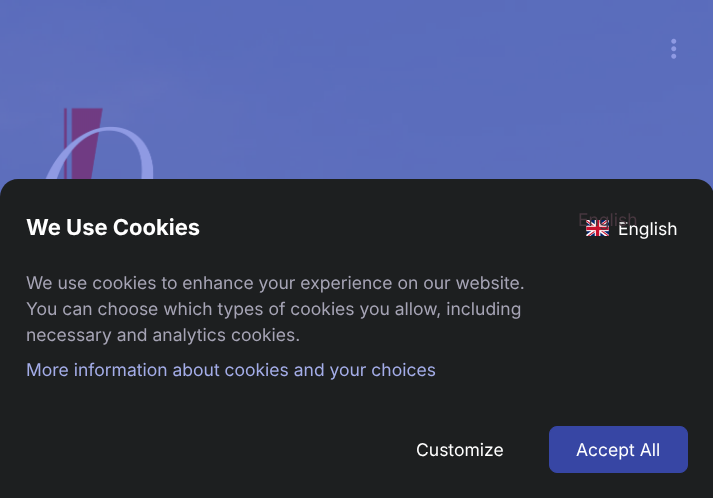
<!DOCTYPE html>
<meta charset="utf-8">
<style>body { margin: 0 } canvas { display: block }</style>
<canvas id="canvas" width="713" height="498"></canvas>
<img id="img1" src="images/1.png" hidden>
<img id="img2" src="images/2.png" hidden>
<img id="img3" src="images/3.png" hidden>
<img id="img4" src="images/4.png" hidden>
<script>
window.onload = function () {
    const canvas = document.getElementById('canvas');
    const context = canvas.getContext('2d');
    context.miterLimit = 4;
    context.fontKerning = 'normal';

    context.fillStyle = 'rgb(255, 255, 255)';
    context.fillRect(0, 0, 713, 498);
    context.drawImage(document.getElementById('img1'), 0, 0, 713, 197);
    context.drawImage(document.getElementById('img2'), 45, 107, 109, 72);
    context.drawImage(document.getElementById('img3'), 671, 38, 6, 21);
    context.fillStyle = 'rgb(29, 31, 32)';
    context.beginPath();
    context.moveTo(18, 179);
    context.lineTo(696, 179);
    context.bezierCurveTo(706, 179, 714, 187, 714, 197);
    context.lineTo(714, 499);
    context.lineTo(0, 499);
    context.lineTo(0, 197);
    context.bezierCurveTo(0, 187, 8, 179, 18, 179);
    context.closePath();
    context.fill();
    context.drawImage(document.getElementById('img4'), 586, 220, 23, 16);
    context.fillStyle = 'rgb(55, 70, 164)';
    context.beginPath();
    context.roundRect(549.5, 426.5, 138, 46, 7.5);
    context.fill();
    context.strokeStyle = 'rgb(55, 70, 164)';
    context.stroke();
    context.font = 'bold 22px Inter';
    context.fillStyle = 'rgb(255, 255, 255)';
    context.fillText('We Use Cookies', 26, 235);
    context.font = '17.5px Inter';
    context.fillText('English', 618, 235);
    context.fillStyle = 'rgb(71, 55, 63)';
    context.fillText('English', 578, 226);
    context.fillStyle = 'rgb(166, 164, 181)';
    context.fillText('We use cookies to enhance your experience on our website.', 26, 289);
    context.fillText('You can choose which types of cookies you allow, including', 26, 315);
    context.fillText('necessary and analytics cookies.', 26, 341);
    context.fillStyle = 'rgb(164, 173, 232)';
    context.fillText('More information about cookies and your choices', 26, 376);
    context.fillStyle = 'rgb(255, 255, 255)';
    context.fillText('Customize', 416, 456);
    context.fillText('Accept All', 576, 456);
};
</script>
